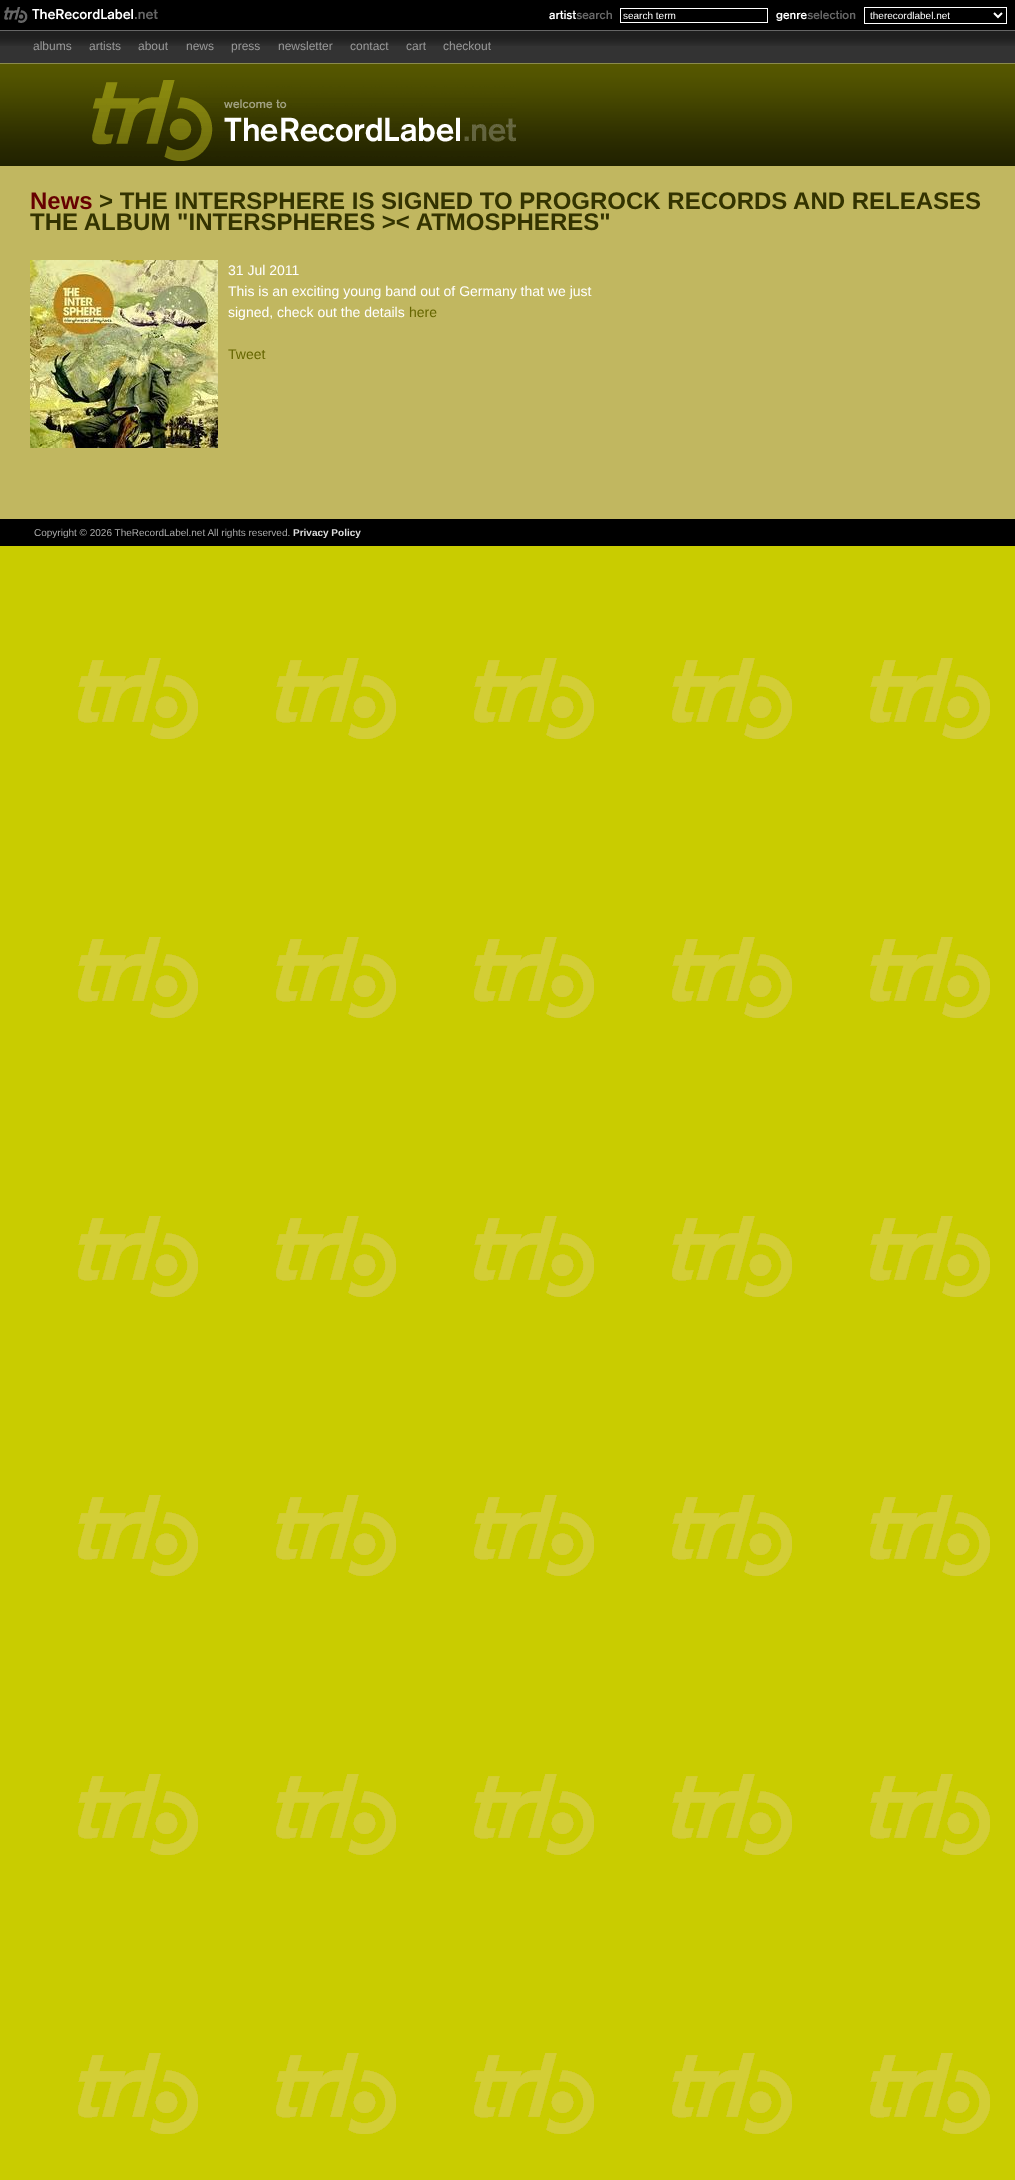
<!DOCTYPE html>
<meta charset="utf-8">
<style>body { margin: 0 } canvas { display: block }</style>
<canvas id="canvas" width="1015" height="2180"></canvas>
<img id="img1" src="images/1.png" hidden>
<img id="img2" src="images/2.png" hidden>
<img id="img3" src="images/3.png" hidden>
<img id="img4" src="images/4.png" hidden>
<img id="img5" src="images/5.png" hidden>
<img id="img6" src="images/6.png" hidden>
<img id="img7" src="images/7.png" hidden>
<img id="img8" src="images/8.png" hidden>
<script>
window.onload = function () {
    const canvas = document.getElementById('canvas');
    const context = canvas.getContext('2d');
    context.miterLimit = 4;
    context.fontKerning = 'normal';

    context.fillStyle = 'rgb(201, 204, 0)';
    context.fillRect(0, 0, 1015, 2180);
    context.drawImage(document.getElementById('img1'), 78, 658, 912, 1476);
    context.fillStyle = 'rgb(0, 0, 0)';
    context.fillRect(0, 0, 1015, 30);
    context.drawImage(document.getElementById('img2'), 4, 7, 154, 16);
    context.drawImage(document.getElementById('img3'), 549, 10, 63, 10);
    context.strokeStyle = 'rgb(255, 255, 255)';
    context.strokeRect(620.5, 8.5, 147, 14);
    context.drawImage(document.getElementById('img4'), 776, 10, 80, 11);
    context.strokeRect(864.5, 7.5, 142, 16);
    context.beginPath();
    context.moveTo(994, 13);
    context.lineTo(998, 17);
    context.lineTo(1002, 13);
    context.lineWidth = 2;
    context.stroke();
    context.fillStyle = 'rgb(51, 51, 51)';
    context.fillRect(0, 46, 1015, 17);
    context.drawImage(document.getElementById('img5'), 0, 31, 1015, 15);
    context.fillStyle = 'rgb(102, 102, 102)';
    context.fillRect(0, 30, 1015, 1);
    context.drawImage(document.getElementById('img6'), 0, 63, 1015, 103);
    context.drawImage(document.getElementById('img7'), 92, 80, 424, 81);
    context.fillStyle = 'rgb(193, 183, 96)';
    context.fillRect(0, 166, 1015, 353);
    context.drawImage(document.getElementById('img8'), 30, 260, 188, 188);
    context.fillStyle = 'rgb(0, 0, 0)';
    context.fillRect(0, 519, 1015, 27);
    context.font = '10px Liberation Sans';
    context.fillStyle = 'rgb(255, 255, 255)';
    context.fillText('search term', 623, 19);
    context.fillText('therecordlabel.net', 870, 19);
    context.font = '12px Liberation Sans';
    context.fillStyle = 'rgb(153, 153, 153)';
    context.fillText('albums', 33, 50);
    context.fillText('artists', 89, 50);
    context.fillText('about', 138, 50);
    context.fillText('news', 186, 50);
    context.fillText('press', 231, 50);
    context.fillText('newsletter', 278, 50);
    context.fillText('contact', 350, 50);
    context.fillText('cart', 406, 50);
    context.fillText('checkout', 443, 50);
    context.font = 'bold 24px Liberation Sans';
    context.fillStyle = 'rgb(102, 0, 0)';
    context.fillText('News', 30, 209);
    context.fillStyle = 'rgb(51, 51, 0)';
    context.fillText('> THE INTERSPHERE IS SIGNED TO PROGROCK RECORDS AND RELEASES', 99, 209);
    context.fillText('THE ALBUM "INTERSPHERES >< ATMOSPHERES"', 30, 230);
    context.font = '14px Liberation Sans';
    context.fillStyle = 'rgb(255, 255, 255)';
    context.fillText('31 Jul 2011', 228, 275);
    context.fillText('This is an exciting young band out of Germany that we just', 228, 296);
    context.fillText('signed, check out the details', 228, 317);
    context.fillStyle = 'rgb(102, 102, 0)';
    context.fillText('here', 409, 317);
    context.fillText('Tweet', 228, 359);
    context.font = '10px Liberation Sans';
    context.fillStyle = 'rgb(170, 170, 170)';
    context.fillText('Copyright © 2026 TheRecordLabel.net All rights reserved.', 34, 536);
    context.font = 'bold 10px Liberation Sans';
    context.fillStyle = 'rgb(221, 221, 221)';
    context.fillText('Privacy Policy', 293, 536);
};
</script>
